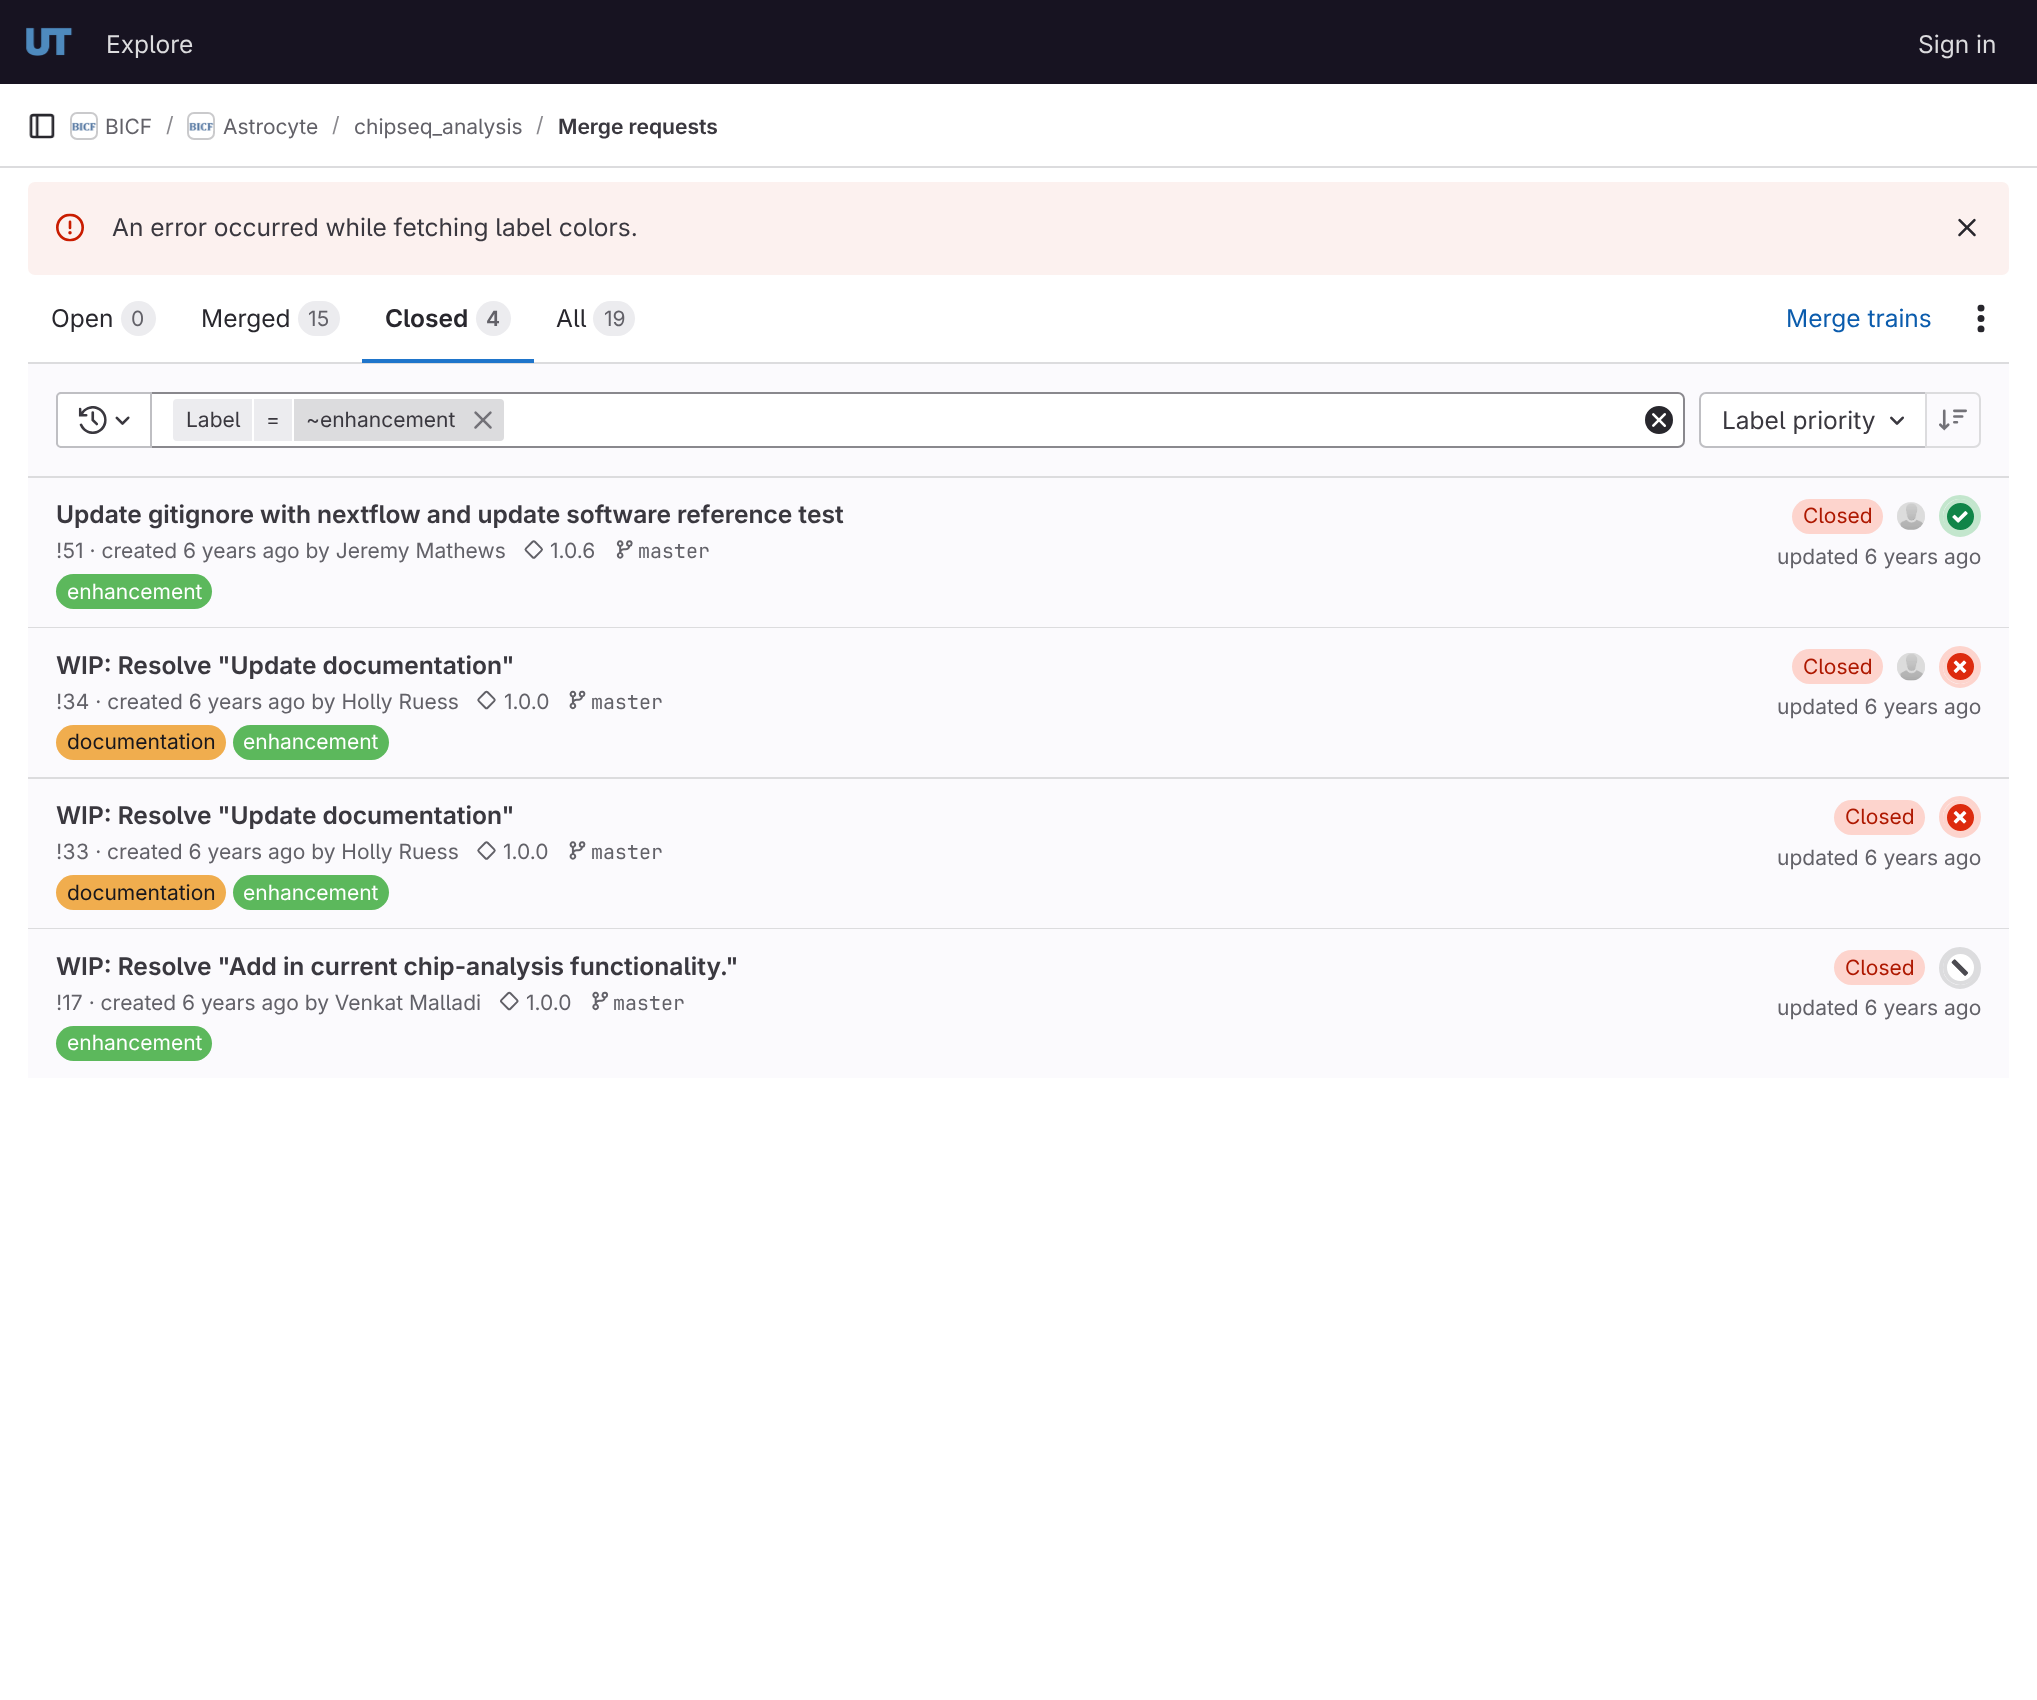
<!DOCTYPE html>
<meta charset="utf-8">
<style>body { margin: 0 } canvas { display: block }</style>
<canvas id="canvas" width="2037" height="1700"></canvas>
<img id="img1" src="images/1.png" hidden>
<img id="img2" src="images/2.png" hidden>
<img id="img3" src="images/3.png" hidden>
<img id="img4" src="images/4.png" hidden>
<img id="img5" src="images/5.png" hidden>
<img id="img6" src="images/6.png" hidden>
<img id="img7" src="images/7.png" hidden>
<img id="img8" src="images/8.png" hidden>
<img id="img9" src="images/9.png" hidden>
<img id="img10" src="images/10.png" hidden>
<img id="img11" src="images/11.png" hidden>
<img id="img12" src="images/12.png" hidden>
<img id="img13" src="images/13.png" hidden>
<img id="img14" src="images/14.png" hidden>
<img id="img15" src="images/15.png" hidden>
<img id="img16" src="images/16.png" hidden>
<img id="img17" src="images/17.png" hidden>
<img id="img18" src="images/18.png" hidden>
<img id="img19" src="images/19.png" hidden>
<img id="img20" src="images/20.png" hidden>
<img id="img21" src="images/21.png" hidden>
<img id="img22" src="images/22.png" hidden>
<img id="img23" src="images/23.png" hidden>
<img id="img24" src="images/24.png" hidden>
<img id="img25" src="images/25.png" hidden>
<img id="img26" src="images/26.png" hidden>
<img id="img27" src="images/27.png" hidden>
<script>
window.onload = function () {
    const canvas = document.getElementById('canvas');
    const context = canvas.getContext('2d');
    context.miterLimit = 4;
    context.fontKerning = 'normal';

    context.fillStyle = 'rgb(255, 255, 255)';
    context.fillRect(0, 0, 2037, 1700);
    context.fillStyle = 'rgb(23, 19, 33)';
    context.fillRect(0, 0, 2037, 84);
    context.drawImage(document.getElementById('img1'), 26, 27, 47, 29);
    context.fillStyle = 'rgb(220, 220, 222)';
    context.fillRect(0, 166, 2037, 2);
    context.drawImage(document.getElementById('img2'), 29, 113, 26, 26);
    context.beginPath();
    context.roundRect(71, 113, 26, 26, 6);
    context.strokeStyle = 'rgb(220, 220, 222)';
    context.lineWidth = 2;
    context.stroke();
    context.drawImage(document.getElementById('img3'), 71, 122, 26, 9);
    context.beginPath();
    context.roundRect(71, 113, 26, 26, 6);
    context.strokeStyle = 'rgba(5, 5, 6, 0.08)';
    context.stroke();
    context.beginPath();
    context.roundRect(188, 113, 26, 26, 6);
    context.strokeStyle = 'rgb(220, 220, 222)';
    context.stroke();
    context.drawImage(document.getElementById('img4'), 189, 122, 25, 9);
    context.beginPath();
    context.roundRect(188, 113, 26, 26, 6);
    context.strokeStyle = 'rgba(5, 5, 6, 0.08)';
    context.stroke();
    context.fillStyle = 'rgb(252, 241, 239)';
    context.beginPath();
    context.roundRect(28, 182, 1981, 93, 7);
    context.fill();
    context.drawImage(document.getElementById('img5'), 56, 213, 28, 29);
    context.drawImage(document.getElementById('img6'), 1958, 218, 18, 19);
    context.fillStyle = 'rgb(236, 236, 239)';
    context.beginPath();
    context.arc(138.5, 318.5, 17.5, 0, 2 * Math.PI);
    context.fill();
    context.beginPath();
    context.roundRect(298, 301, 42, 35, 17.5);
    context.fill();
    context.beginPath();
    context.arc(493.5, 318.5, 17.5, 0, 2 * Math.PI);
    context.fill();
    context.fillStyle = 'rgb(220, 220, 222)';
    context.fillRect(28, 362, 1981, 2);
    context.fillStyle = 'rgb(31, 117, 203)';
    context.fillRect(362, 359, 172, 4);
    context.fillStyle = 'rgb(236, 236, 239)';
    context.beginPath();
    context.roundRect(593, 301, 42, 35, 17.5);
    context.fill();
    context.drawImage(document.getElementById('img7'), 1977, 304, 8, 29);
    context.fillStyle = 'rgb(251, 250, 253)';
    context.fillRect(28, 364, 1981, 112);
    context.fillStyle = 'rgb(220, 220, 222)';
    context.fillRect(28, 476, 1981, 2);
    context.fillStyle = 'rgb(255, 255, 255)';
    context.beginPath();
    context.roundRect(57, 393, 1627, 54, 6);
    context.fill();
    context.strokeStyle = 'rgb(137, 136, 141)';
    context.stroke();
    context.beginPath();
    context.roundRect(57, 393, 94, 54, [4, 0, 0, 4]);
    context.fill();
    context.strokeStyle = 'rgb(191, 191, 195)';
    context.stroke();
    context.drawImage(document.getElementById('img8'), 78, 406, 29, 28);
    context.drawImage(document.getElementById('img9'), 115, 416, 15, 9);
    context.fillStyle = 'rgb(236, 236, 239)';
    context.beginPath();
    context.roundRect(173, 399, 79, 42, [4, 0, 0, 4]);
    context.fill();
    context.fillRect(254, 399, 38, 42);
    context.fillStyle = 'rgb(220, 220, 222)';
    context.beginPath();
    context.roundRect(294, 399, 210, 42, [0, 4, 4, 0]);
    context.fill();
    context.drawImage(document.getElementById('img10'), 474, 411, 18, 18);
    context.drawImage(document.getElementById('img11'), 1645, 406, 28, 28);
    context.fillStyle = 'rgb(255, 255, 255)';
    context.beginPath();
    context.roundRect(1700, 393, 226, 54, [6, 0, 0, 6]);
    context.fill();
    context.stroke();
    context.drawImage(document.getElementById('img12'), 1890, 416, 14, 9);
    context.fillStyle = 'rgb(251, 250, 253)';
    context.beginPath();
    context.roundRect(1926, 393, 54, 54, [0, 6, 6, 0]);
    context.fill();
    context.strokeStyle = 'rgb(220, 220, 222)';
    context.stroke();
    context.drawImage(document.getElementById('img13'), 1939, 409, 28, 22);
    context.fillRect(28, 478, 1981, 149);
    context.fillStyle = 'rgb(220, 220, 222)';
    context.fillRect(28, 627, 1981, 1);
    context.drawImage(document.getElementById('img14'), 524, 540, 19, 19);
    context.drawImage(document.getElementById('img15'), 616, 540, 17, 19);
    context.fillStyle = 'rgb(92, 184, 92)';
    context.beginPath();
    context.roundRect(56, 574, 156, 35, 17.5);
    context.fill();
    context.fillStyle = 'rgb(253, 212, 205)';
    context.beginPath();
    context.roundRect(1792, 499, 91, 35, 17.5);
    context.fill();
    context.beginPath();
    context.arc(1911, 516, 13, 0, 2 * Math.PI);
    context.strokeStyle = 'rgb(231, 230, 233)';
    context.stroke();
    context.drawImage(document.getElementById('img16'), 1897, 502, 28, 28);
    context.beginPath();
    context.arc(1960, 516, 19, 0, 2 * Math.PI);
    context.strokeStyle = 'rgb(195, 230, 205)';
    context.lineWidth = 4;
    context.stroke();
    context.fillStyle = 'rgb(16, 133, 72)';
    context.beginPath();
    context.arc(1960.5, 516.5, 15.5, 0, 2 * Math.PI);
    context.fill();
    context.stroke();
    context.drawImage(document.getElementById('img17'), 1952, 511, 16, 12);
    context.fillStyle = 'rgb(251, 250, 253)';
    context.fillRect(28, 628, 1981, 149);
    context.fillStyle = 'rgb(220, 220, 222)';
    context.fillRect(28, 777, 1981, 2);
    context.drawImage(document.getElementById('img18'), 477, 690, 19, 20);
    context.drawImage(document.getElementById('img19'), 569, 690, 17, 20);
    context.fillStyle = 'rgb(240, 173, 78)';
    context.beginPath();
    context.roundRect(56, 725, 170, 35, 17.5);
    context.fill();
    context.fillStyle = 'rgb(92, 184, 92)';
    context.beginPath();
    context.roundRect(233, 725, 156, 35, 17.5);
    context.fill();
    context.fillStyle = 'rgb(253, 212, 205)';
    context.beginPath();
    context.roundRect(1792, 649, 91, 35, 17.5);
    context.fill();
    context.beginPath();
    context.arc(1911, 667, 13, 0, 2 * Math.PI);
    context.strokeStyle = 'rgb(231, 230, 233)';
    context.lineWidth = 2;
    context.stroke();
    context.drawImage(document.getElementById('img20'), 1897, 653, 28, 28);
    context.beginPath();
    context.arc(1960, 667, 19, 0, 2 * Math.PI);
    context.strokeStyle = 'rgb(253, 212, 205)';
    context.lineWidth = 4;
    context.stroke();
    context.fillStyle = 'rgb(221, 43, 14)';
    context.beginPath();
    context.arc(1960.5, 666.5, 15.5, 0, 2 * Math.PI);
    context.fill();
    context.stroke();
    context.drawImage(document.getElementById('img21'), 1953, 660, 14, 13);
    context.fillStyle = 'rgb(251, 250, 253)';
    context.fillRect(28, 779, 1981, 149);
    context.fillStyle = 'rgb(220, 220, 222)';
    context.fillRect(28, 928, 1981, 1);
    context.drawImage(document.getElementById('img22'), 477, 841, 19, 19);
    context.drawImage(document.getElementById('img23'), 569, 841, 17, 19);
    context.fillStyle = 'rgb(240, 173, 78)';
    context.beginPath();
    context.roundRect(56, 875, 170, 35, 17.5);
    context.fill();
    context.fillStyle = 'rgb(92, 184, 92)';
    context.beginPath();
    context.roundRect(233, 875, 156, 35, 17.5);
    context.fill();
    context.fillStyle = 'rgb(253, 212, 205)';
    context.beginPath();
    context.roundRect(1834, 800, 91, 35, 17.5);
    context.fill();
    context.beginPath();
    context.arc(1960, 817, 19, 0, 2 * Math.PI);
    context.stroke();
    context.fillStyle = 'rgb(221, 43, 14)';
    context.beginPath();
    context.arc(1960.5, 817.5, 15.5, 0, 2 * Math.PI);
    context.fill();
    context.stroke();
    context.drawImage(document.getElementById('img24'), 1953, 811, 14, 13);
    context.fillStyle = 'rgb(251, 250, 253)';
    context.fillRect(28, 929, 1981, 149);
    context.drawImage(document.getElementById('img25'), 500, 991, 19, 20);
    context.drawImage(document.getElementById('img26'), 592, 991, 17, 20);
    context.fillStyle = 'rgb(92, 184, 92)';
    context.beginPath();
    context.roundRect(56, 1026, 156, 35, 17.5);
    context.fill();
    context.fillStyle = 'rgb(253, 212, 205)';
    context.beginPath();
    context.roundRect(1834, 950, 91, 35, 17.5);
    context.fill();
    context.beginPath();
    context.arc(1960, 968, 19, 0, 2 * Math.PI);
    context.strokeStyle = 'rgb(220, 220, 222)';
    context.stroke();
    context.fillStyle = 'rgb(255, 255, 255)';
    context.beginPath();
    context.arc(1960.5, 967.5, 15.5, 0, 2 * Math.PI);
    context.fill();
    context.stroke();
    context.drawImage(document.getElementById('img27'), 1951, 959, 18, 17);
    context.font = '24.5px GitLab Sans';
    context.fillStyle = 'rgb(220, 220, 222)';
    context.fillText('Explore', 106, 53);
    context.fillText('Sign in', 1918, 53);
    context.font = '21px GitLab Sans';
    context.fillStyle = 'rgb(98, 97, 104)';
    context.fillText('BICF', 105, 134);
    context.fillStyle = 'rgb(137, 136, 141)';
    context.fillText('/', 166, 132);
    context.fillStyle = 'rgb(98, 97, 104)';
    context.fillText('Astrocyte', 223, 134);
    context.fillStyle = 'rgb(137, 136, 141)';
    context.fillText('/', 332, 132);
    context.fillStyle = 'rgb(98, 97, 104)';
    context.fillText('chipseq_analysis', 354, 134);
    context.fillStyle = 'rgb(137, 136, 141)';
    context.fillText('/', 536, 132);
    context.font = '600 21px GitLab Sans';
    context.fillStyle = 'rgb(58, 56, 63)';
    context.fillText('Merge requests', 558, 134);
    context.font = '24.5px GitLab Sans';
    context.fillText('An error occurred while fetching label colors.', 112, 236);
    context.fillStyle = 'rgb(40, 39, 45)';
    context.fillText('Open', 51, 327);
    context.font = '21px GitLab Sans';
    context.fillStyle = 'rgb(98, 97, 104)';
    context.fillText('0', 131, 326);
    context.font = '24.5px GitLab Sans';
    context.fillStyle = 'rgb(40, 39, 45)';
    context.fillText('Merged', 201, 327);
    context.font = '21px GitLab Sans';
    context.fillStyle = 'rgb(98, 97, 104)';
    context.fillText('15', 308, 326);
    context.font = '600 24.5px GitLab Sans';
    context.fillStyle = 'rgb(40, 39, 45)';
    context.fillText('Closed', 385, 327);
    context.font = '600 21px GitLab Sans';
    context.fillStyle = 'rgb(98, 97, 104)';
    context.fillText('4', 486, 326);
    context.font = '24.5px GitLab Sans';
    context.fillStyle = 'rgb(40, 39, 45)';
    context.fillText('All', 556, 327);
    context.font = '21px GitLab Sans';
    context.fillStyle = 'rgb(98, 97, 104)';
    context.fillText('19', 604, 326);
    context.font = '24.5px GitLab Sans';
    context.fillStyle = 'rgb(11, 92, 173)';
    context.fillText('Merge trains', 1786, 327);
    context.font = '21px GitLab Sans';
    context.fillStyle = 'rgb(58, 56, 63)';
    context.fillText('Label', 186, 427);
    context.fillText('=', 266, 427);
    context.fillText('~enhancement', 306, 427);
    context.font = '24.5px GitLab Sans';
    context.fillText('Label priority', 1722, 429);
    context.font = '600 24.5px GitLab Sans';
    context.fillText('Update gitignore with nextflow and update software reference test', 56, 523);
    context.font = '21px GitLab Sans';
    context.fillStyle = 'rgb(98, 97, 104)';
    context.fillText('!51 · created 6 years ago by Jeremy Mathews', 56, 558);
    context.fillText('1.0.6', 550, 558);
    context.font = '20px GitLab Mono';
    context.fillText('master', 638, 558);
    context.font = '21px GitLab Sans';
    context.fillStyle = 'rgb(255, 255, 255)';
    context.fillText('enhancement', 67, 599);
    context.fillStyle = 'rgb(174, 24, 0)';
    context.fillText('Closed', 1803, 523);
    context.fillStyle = 'rgb(98, 97, 104)';
    context.fillText('updated 6 years ago', 1777, 564);
    context.font = '600 24.5px GitLab Sans';
    context.fillStyle = 'rgb(58, 56, 63)';
    context.fillText('WIP: Resolve "Update documentation"', 56, 674);
    context.font = '21px GitLab Sans';
    context.fillStyle = 'rgb(98, 97, 104)';
    context.fillText('!34 · created 6 years ago by Holly Ruess', 56, 709);
    context.fillText('1.0.0', 504, 709);
    context.font = '20px GitLab Mono';
    context.fillText('master', 591, 709);
    context.font = '21px GitLab Sans';
    context.fillStyle = 'rgb(24, 23, 29)';
    context.fillText('documentation', 67, 749);
    context.fillStyle = 'rgb(255, 255, 255)';
    context.fillText('enhancement', 243, 749);
    context.fillStyle = 'rgb(174, 24, 0)';
    context.fillText('Closed', 1803, 674);
    context.fillStyle = 'rgb(98, 97, 104)';
    context.fillText('updated 6 years ago', 1777, 714);
    context.font = '600 24.5px GitLab Sans';
    context.fillStyle = 'rgb(58, 56, 63)';
    context.fillText('WIP: Resolve "Update documentation"', 56, 824);
    context.font = '21px GitLab Sans';
    context.fillStyle = 'rgb(98, 97, 104)';
    context.fillText('!33 · created 6 years ago by Holly Ruess', 56, 859);
    context.fillText('1.0.0', 503, 859);
    context.font = '20px GitLab Mono';
    context.fillText('master', 591, 859);
    context.font = '21px GitLab Sans';
    context.fillStyle = 'rgb(24, 23, 29)';
    context.fillText('documentation', 67, 900);
    context.fillStyle = 'rgb(255, 255, 255)';
    context.fillText('enhancement', 243, 900);
    context.fillStyle = 'rgb(174, 24, 0)';
    context.fillText('Closed', 1845, 824);
    context.fillStyle = 'rgb(98, 97, 104)';
    context.fillText('updated 6 years ago', 1777, 865);
    context.font = '600 24.5px GitLab Sans';
    context.fillStyle = 'rgb(58, 56, 63)';
    context.fillText('WIP: Resolve "Add in current chip-analysis functionality."', 56, 975);
    context.font = '21px GitLab Sans';
    context.fillStyle = 'rgb(98, 97, 104)';
    context.fillText('!17 · created 6 years ago by Venkat Malladi', 56, 1010);
    context.fillText('1.0.0', 526, 1010);
    context.font = '20px GitLab Mono';
    context.fillText('master', 613, 1010);
    context.font = '21px GitLab Sans';
    context.fillStyle = 'rgb(255, 255, 255)';
    context.fillText('enhancement', 67, 1050);
    context.fillStyle = 'rgb(174, 24, 0)';
    context.fillText('Closed', 1845, 975);
    context.fillStyle = 'rgb(98, 97, 104)';
    context.fillText('updated 6 years ago', 1777, 1015);
};
</script>
